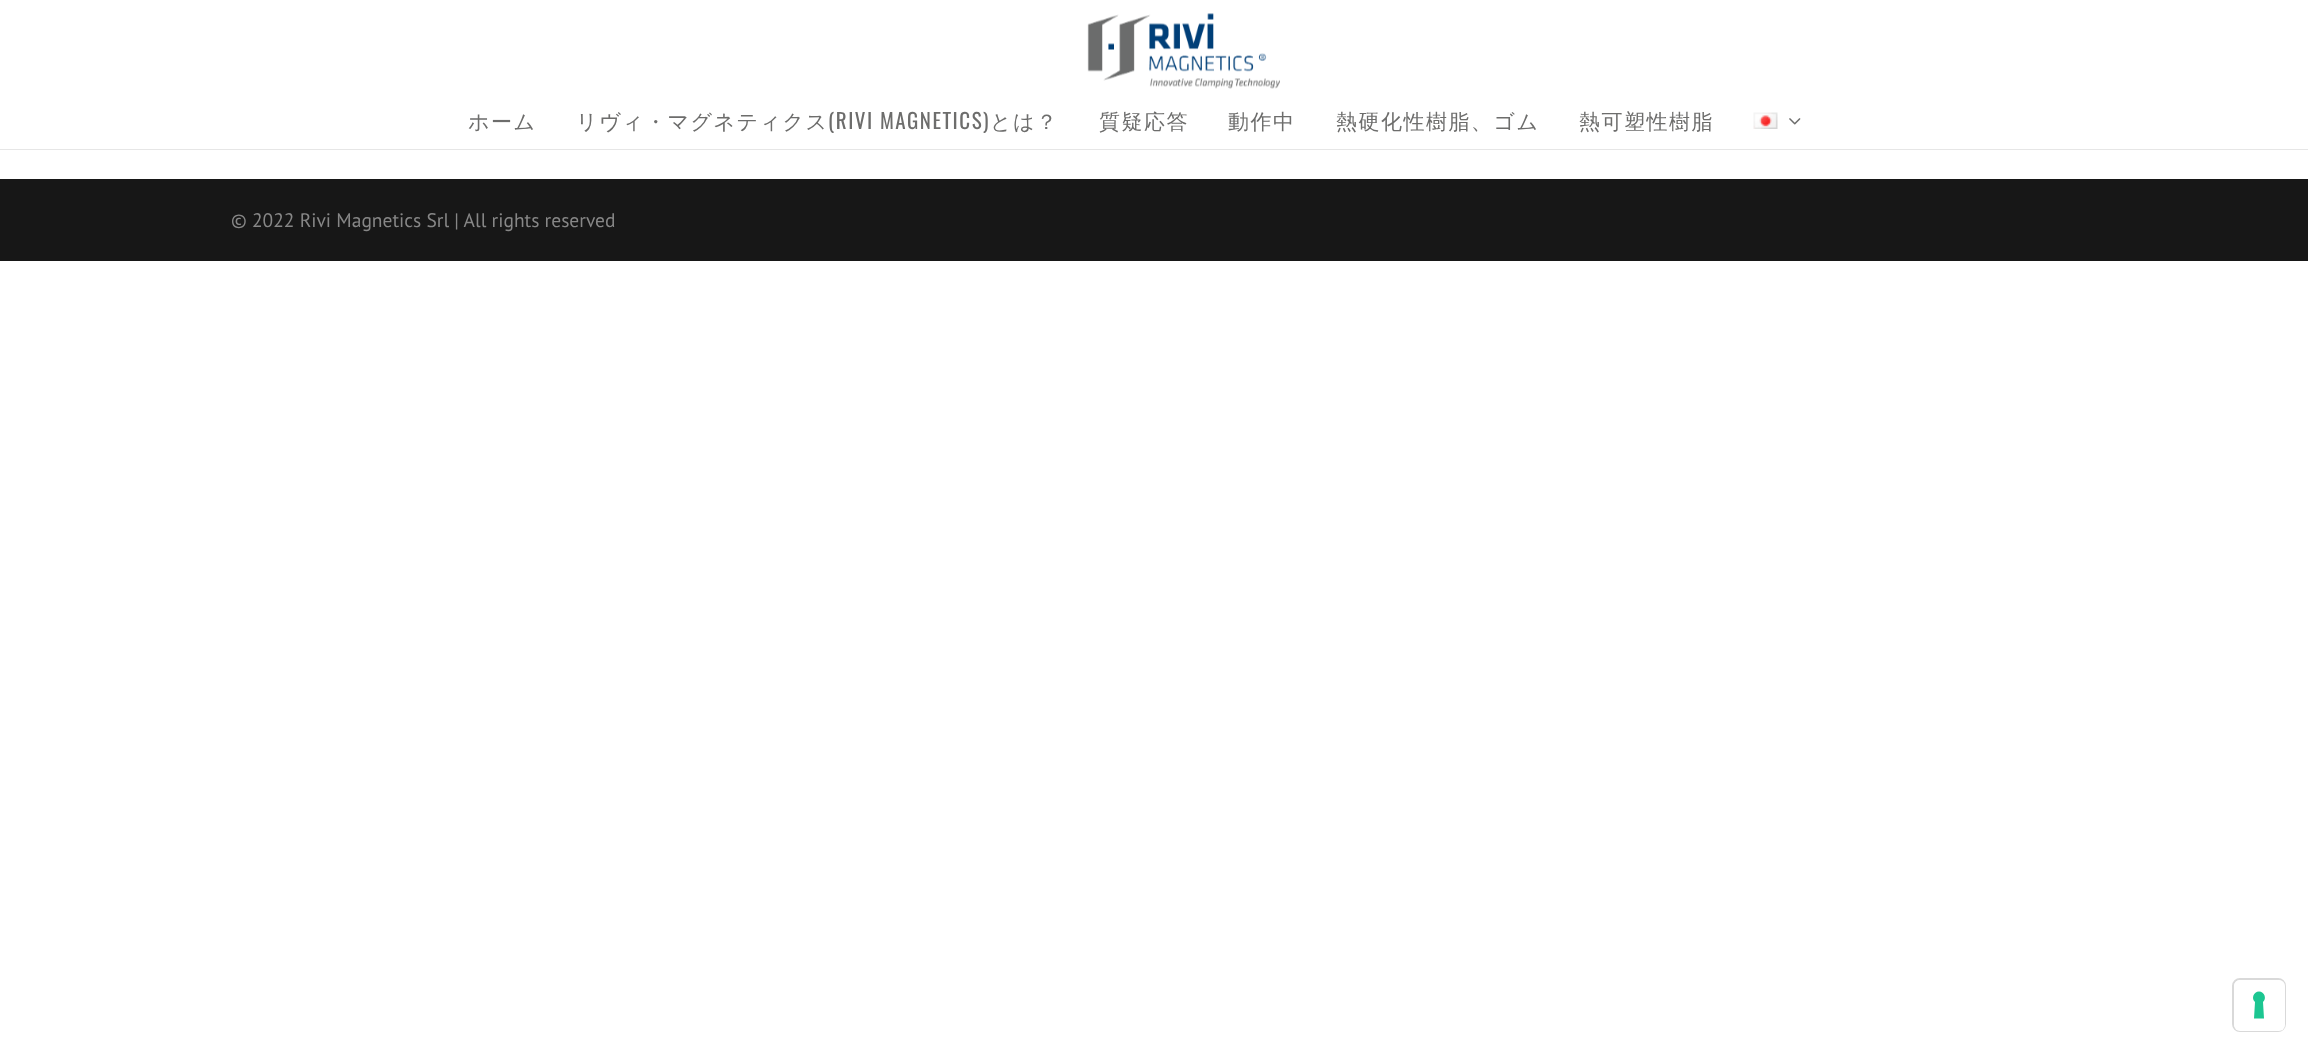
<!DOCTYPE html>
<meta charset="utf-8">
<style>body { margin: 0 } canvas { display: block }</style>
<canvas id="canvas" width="2308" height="1054"></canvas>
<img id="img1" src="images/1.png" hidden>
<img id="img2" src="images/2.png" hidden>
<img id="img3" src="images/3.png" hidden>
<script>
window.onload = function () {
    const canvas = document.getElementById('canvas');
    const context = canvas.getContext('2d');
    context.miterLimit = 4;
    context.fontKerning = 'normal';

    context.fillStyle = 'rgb(255, 255, 255)';
    context.fillRect(0, 0, 2308, 1054);
    context.fillStyle = 'rgb(230, 230, 230)';
    context.beginPath();
    context.moveTo(0, 148);
    context.lineTo(0, 150);
    context.lineTo(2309, 150);
    context.lineTo(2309, 2);
    context.lineTo(2308, 2);
    context.lineTo(2308, 148);
    context.closePath();
    context.fill();
    context.fillStyle = 'rgb(255, 255, 255)';
    context.fillRect(0, 148, 2308, 1);
    context.drawImage(document.getElementById('img1'), 1087, 13, 193, 76);
    context.drawImage(document.getElementById('img2'), 1753, 112, 25, 17);
    context.drawImage(document.getElementById('img3'), 1789, 118, 12, 7);
    context.fillStyle = 'rgb(23, 23, 23)';
    context.fillRect(0, 179, 2308, 82);
    context.beginPath();
    context.roundRect(2233, 979, 52, 52, 7);
    context.strokeStyle = 'rgb(217, 217, 217)';
    context.lineWidth = 2;
    context.stroke();
    context.fillStyle = 'rgb(255, 255, 255)';
    context.beginPath();
    context.roundRect(2234, 980, 51, 51, 6);
    context.fill();
    context.fillStyle = 'rgb(28, 198, 145)';
    context.beginPath();
    context.moveTo(2259, 991.5);
    context.bezierCurveTo(2264.5, 991.5, 2267, 998.5, 2263, 1002);
    context.lineTo(2264, 1018.5);
    context.lineTo(2254, 1018.5);
    context.lineTo(2255, 1002);
    context.bezierCurveTo(2251, 998.5, 2253.5, 991.5, 2259, 991.5);
    context.closePath();
    context.fill('evenodd');
    context.letterSpacing = '1.5px';
    context.font = '500 21px WenQuanYi Zen Hei';
    context.fillStyle = 'rgb(109, 109, 108)';
    context.fillText('ホーム', 468, 129);
    context.fillText('リヴィ・マグネティクス', 576, 129);
    context.font = '21px Oswald';
    context.fillText('(RIVI MAGNETICS)', 828, 129);
    context.font = '500 21px WenQuanYi Zen Hei';
    context.fillText('とは？', 990, 129);
    context.fillText('質疑応答', 1099, 129);
    context.fillText('動作中', 1228, 129);
    context.fillText('熱硬化性樹脂、ゴム', 1336, 129);
    context.fillText('熱可塑性樹脂', 1579, 129);
    context.letterSpacing = '0px';
    context.font = '19.5px PT Sans';
    context.fillStyle = 'rgb(135, 135, 135)';
    context.fillText('© 2022 Rivi Magnetics Srl | All rights reserved', 231, 227);
};
</script>
